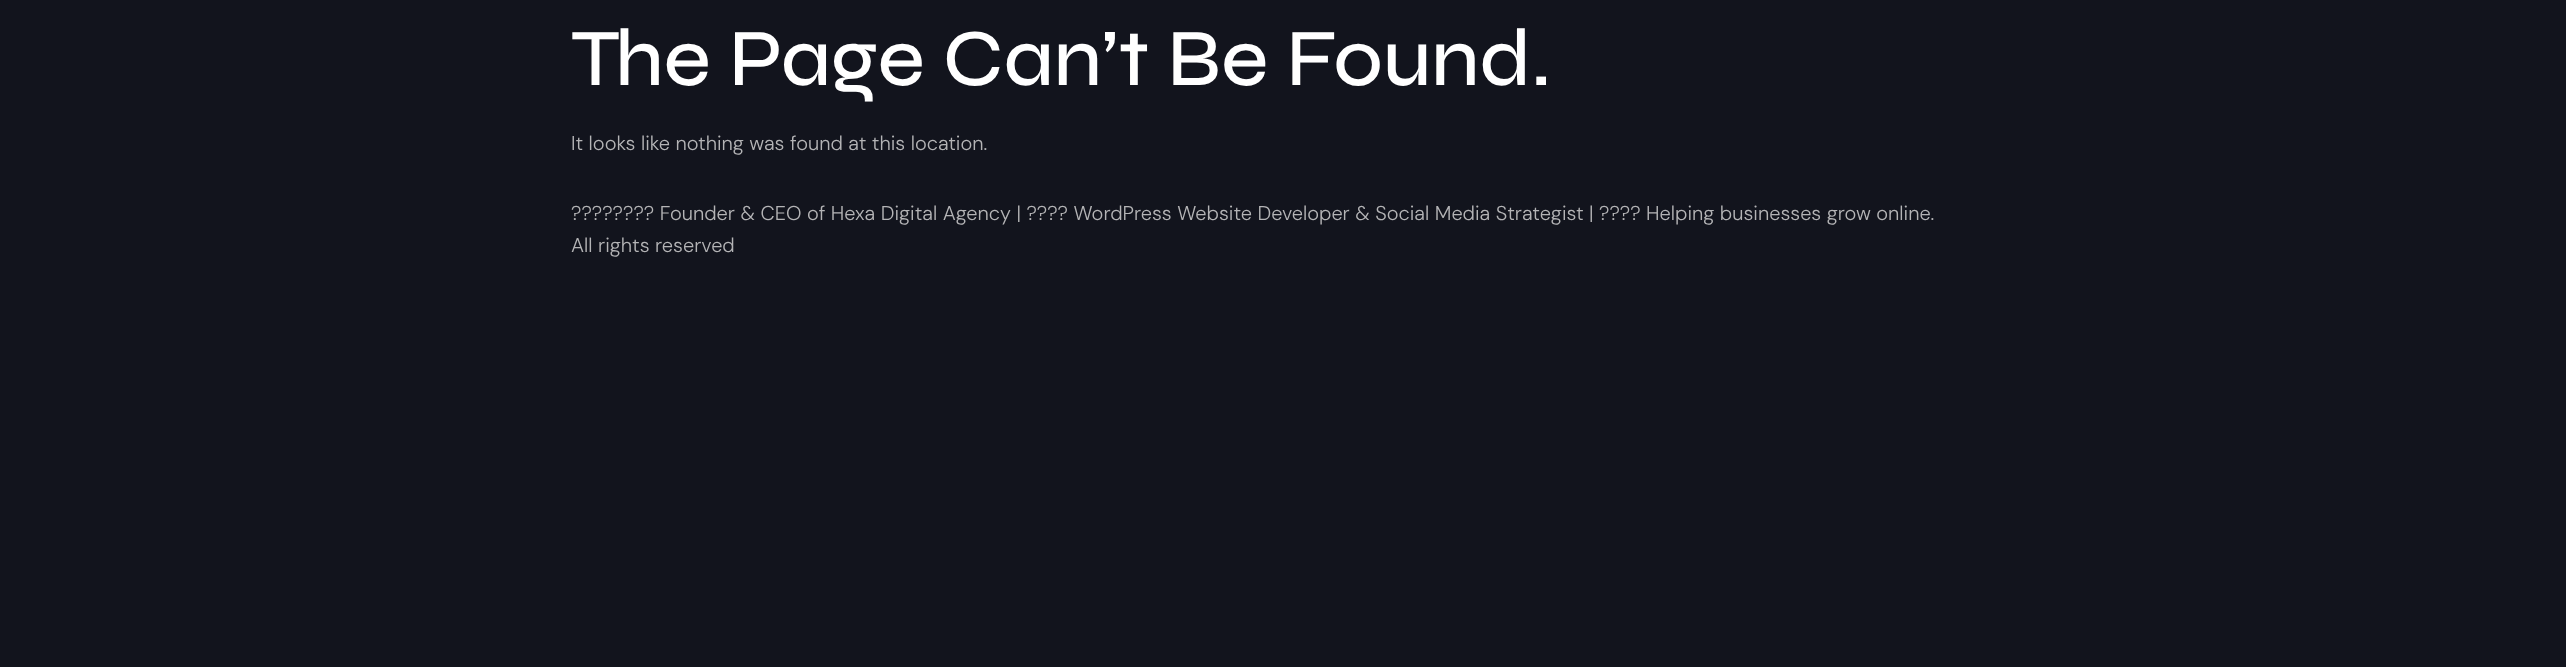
<!DOCTYPE html>
<meta charset="utf-8">
<style>body { margin: 0 } canvas { display: block }</style>
<canvas id="canvas" width="2566" height="667"></canvas>
<script>
window.onload = function () {
    const canvas = document.getElementById('canvas');
    const context = canvas.getContext('2d');
    context.miterLimit = 4;
    context.fontKerning = 'normal';

    context.fillStyle = 'rgb(18, 20, 29)';
    context.fillRect(0, 0, 2566, 667);
    context.font = '500 81.25px Syne';
    context.fillStyle = 'rgb(255, 255, 255)';
    context.fillText('The Page Can’t Be Found.', 571, 85);
    context.font = '300 20px DM Sans';
    context.fillStyle = 'rgb(180, 180, 182)';
    context.fillText('It looks like nothing was found at this location.', 571, 150);
    context.fillText('????‍???? Founder & CEO of Hexa Digital Agency | ???? WordPress Website Developer & Social Media Strategist | ???? Helping businesses grow online.', 571, 220);
    context.fillText('All rights reserved', 571, 252);
};
</script>
